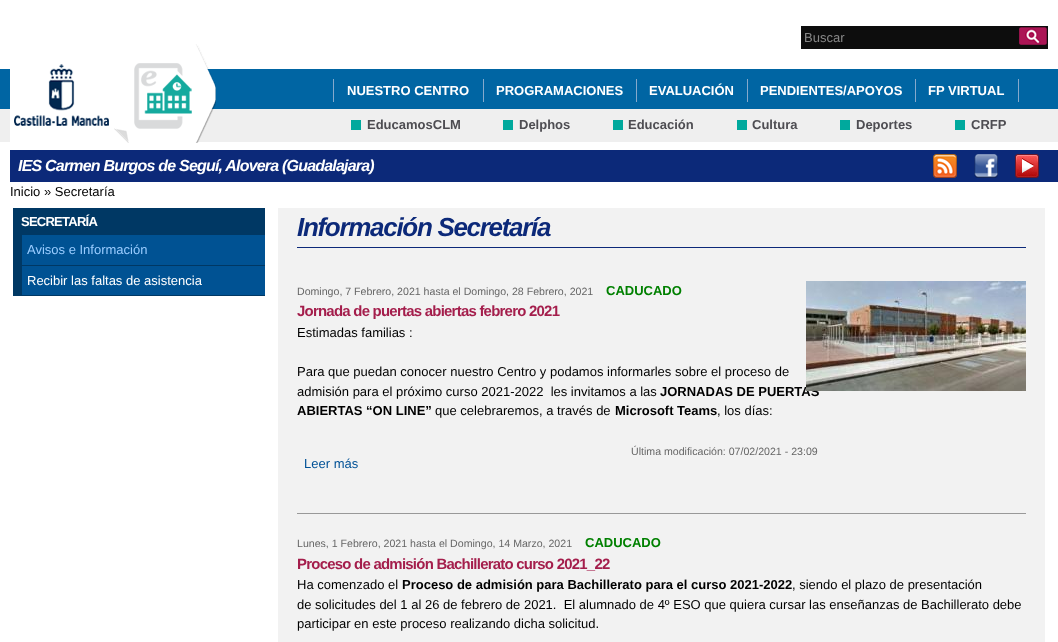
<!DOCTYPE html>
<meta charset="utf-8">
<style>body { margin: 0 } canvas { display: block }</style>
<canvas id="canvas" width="1058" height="642"></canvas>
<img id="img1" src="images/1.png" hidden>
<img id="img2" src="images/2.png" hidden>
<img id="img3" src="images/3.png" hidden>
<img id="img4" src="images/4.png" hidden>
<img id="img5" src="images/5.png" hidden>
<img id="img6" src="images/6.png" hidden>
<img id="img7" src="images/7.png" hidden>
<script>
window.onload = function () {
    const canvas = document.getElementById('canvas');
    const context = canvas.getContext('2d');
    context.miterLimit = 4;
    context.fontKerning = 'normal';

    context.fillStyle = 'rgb(255, 255, 255)';
    context.fillRect(0, 0, 1058, 642);
    context.fillStyle = 'rgb(13, 13, 13)';
    context.fillRect(801, 26, 247, 23);
    context.drawImage(document.getElementById('img1'), 1019, 27, 28, 18);
    context.fillStyle = 'rgb(0, 101, 163)';
    context.fillRect(0, 69, 1058, 40);
    context.fillStyle = 'rgb(239, 239, 239)';
    context.fillRect(0, 109, 1058, 33);
    context.drawImage(document.getElementById('img2'), 10, 64, 118, 78);
    context.drawImage(document.getElementById('img3'), 114, 44, 102, 99);
    context.fillStyle = 'rgb(133, 169, 204)';
    context.fillRect(483, 79, 1, 23);
    context.fillRect(333, 79, 1, 23);
    context.fillRect(636, 79, 1, 23);
    context.fillRect(747, 79, 1, 23);
    context.fillRect(915, 79, 1, 23);
    context.fillRect(1018, 79, 1, 23);
    context.fillStyle = 'rgb(0, 169, 157)';
    context.fillRect(351, 120, 10, 10);
    context.fillRect(503, 120, 10, 10);
    context.fillRect(613, 120, 10, 10);
    context.fillRect(737, 120, 10, 10);
    context.fillRect(840, 120, 10, 10);
    context.fillRect(955, 120, 10, 10);
    context.fillStyle = 'rgb(12, 41, 121)';
    context.fillRect(10, 150, 1048, 32);
    context.drawImage(document.getElementById('img4'), 933, 154, 24, 24);
    context.drawImage(document.getElementById('img5'), 974, 154, 24, 24);
    context.drawImage(document.getElementById('img6'), 1015, 154, 24, 24);
    context.fillStyle = 'rgb(0, 56, 100)';
    context.fillRect(13, 208, 252, 88);
    context.fillStyle = 'rgb(0, 82, 147)';
    context.fillRect(22, 235, 243, 30);
    context.fillRect(22, 266, 243, 29);
    context.fillStyle = 'rgb(242, 242, 242)';
    context.fillRect(278, 208, 767, 434);
    context.fillStyle = 'rgb(12, 41, 121)';
    context.fillRect(297, 247, 729, 1);
    context.fillStyle = 'rgb(153, 153, 153)';
    context.fillRect(297, 513, 729, 1);
    context.font = '13px Liberation Sans';
    context.fillStyle = 'rgb(136, 136, 136)';
    context.fillText('Buscar', 804, 42);
    context.font = 'bold 13px Liberation Sans';
    context.fillStyle = 'rgb(255, 255, 255)';
    context.fillText('NUESTRO CENTRO', 347, 95);
    context.fillText('PROGRAMACIONES', 496, 95);
    context.fillText('EVALUACIÓN', 649, 95);
    context.fillText('PENDIENTES/APOYOS', 760, 95);
    context.fillText('FP VIRTUAL', 928, 95);
    context.fillStyle = 'rgb(78, 77, 82)';
    context.fillText('EducamosCLM', 367, 129);
    context.fillText('Delphos', 519, 129);
    context.fillText('Educación', 628, 129);
    context.fillText('Cultura', 752, 129);
    context.fillText('Deportes', 856, 129);
    context.fillText('CRFP', 971, 129);
    context.letterSpacing = '-0.8px';
    context.font = 'italic bold 16px Liberation Sans';
    context.fillStyle = 'rgb(255, 255, 255)';
    context.fillText('IES Carmen Burgos de Seguí, Alovera (Guadalajara)', 18, 171);
    context.letterSpacing = '0px';
    context.font = '13px Liberation Sans';
    context.fillStyle = 'rgb(0, 0, 0)';
    context.fillText('Inicio » Secretaría', 10, 196);
    context.letterSpacing = '-0.75px';
    context.font = 'bold 13px Liberation Sans';
    context.fillStyle = 'rgb(255, 255, 255)';
    context.fillText('SECRETARÍA', 21, 226);
    context.letterSpacing = '0px';
    context.font = '13px Liberation Sans';
    context.fillStyle = 'rgb(153, 204, 255)';
    context.fillText('Avisos e Información', 27, 254);
    context.fillStyle = 'rgb(255, 255, 255)';
    context.fillText('Recibir las faltas de asistencia', 27, 285);
    context.letterSpacing = '-1.3px';
    context.font = 'italic bold 26px Liberation Sans';
    context.fillStyle = 'rgb(12, 41, 121)';
    context.fillText('Información Secretaría', 297, 236);
    context.letterSpacing = '0px';
    context.font = '10.6px Liberation Sans';
    context.fillStyle = 'rgb(102, 102, 102)';
    context.fillText('Domingo, 7 Febrero, 2021 hasta el Domingo, 28 Febrero, 2021', 297, 295);
    context.font = 'bold 13px Liberation Sans';
    context.fillStyle = 'rgb(0, 128, 0)';
    context.fillText('CADUCADO', 606, 295);
    context.letterSpacing = '-0.75px';
    context.font = 'bold 14.95px Liberation Sans';
    context.fillStyle = 'rgb(164, 30, 76)';
    context.fillText('Jornada de puertas abiertas febrero 2021', 297, 316);
    context.letterSpacing = '0px';
    context.font = '13px Liberation Sans';
    context.fillStyle = 'rgb(0, 0, 0)';
    context.fillText('Estimadas familias :', 297, 337);
    context.fillText('Para que puedan conocer nuestro Centro y podamos informarles sobre el proceso de', 297, 376);
    context.fillText('admisión para el próximo curso 2021-2022  les invitamos a las', 297, 396);
    context.font = 'bold 13px Liberation Sans';
    context.fillText('JORNADAS DE PUERTAS', 660, 396);
    context.fillText('ABIERTAS “ON LINE”', 297, 415);
    context.font = '13px Liberation Sans';
    context.fillText('que celebraremos, a través de', 435, 415);
    context.font = 'bold 13px Liberation Sans';
    context.fillText('Microsoft Teams', 615, 415);
    context.font = '13px Liberation Sans';
    context.fillText(', los días:', 717, 415);
    context.font = '10.6px Liberation Sans';
    context.fillStyle = 'rgb(102, 102, 102)';
    context.fillText('Última modificación: 07/02/2021 - 23:09', 631, 455);
    context.font = '13px Liberation Sans';
    context.fillStyle = 'rgb(0, 81, 150)';
    context.fillText('Leer más', 304, 468);
    context.drawImage(document.getElementById('img7'), 806, 281, 220, 110);
    context.font = '10.6px Liberation Sans';
    context.fillStyle = 'rgb(102, 102, 102)';
    context.fillText('Lunes, 1 Febrero, 2021 hasta el Domingo, 14 Marzo, 2021', 297, 547);
    context.font = 'bold 13px Liberation Sans';
    context.fillStyle = 'rgb(0, 128, 0)';
    context.fillText('CADUCADO', 585, 547);
    context.letterSpacing = '-0.75px';
    context.font = 'bold 14.95px Liberation Sans';
    context.fillStyle = 'rgb(164, 30, 76)';
    context.fillText('Proceso de admisión Bachillerato curso 2021_22', 297, 569);
    context.letterSpacing = '0px';
    context.font = '13px Liberation Sans';
    context.fillStyle = 'rgb(0, 0, 0)';
    context.fillText('Ha comenzado el', 297, 589);
    context.font = 'bold 13px Liberation Sans';
    context.fillText('Proceso de admisión para Bachillerato para el curso 2021-2022', 402, 589);
    context.font = '13px Liberation Sans';
    context.fillText(', siendo el plazo de presentación', 792, 589);
    context.fillText('de solicitudes del 1 al 26 de febrero de 2021.  El alumnado de 4º ESO que quiera cursar las enseñanzas de Bachillerato debe', 297, 609);
    context.fillText('participar en este proceso realizando dicha solicitud.', 297, 628);
};
</script>
